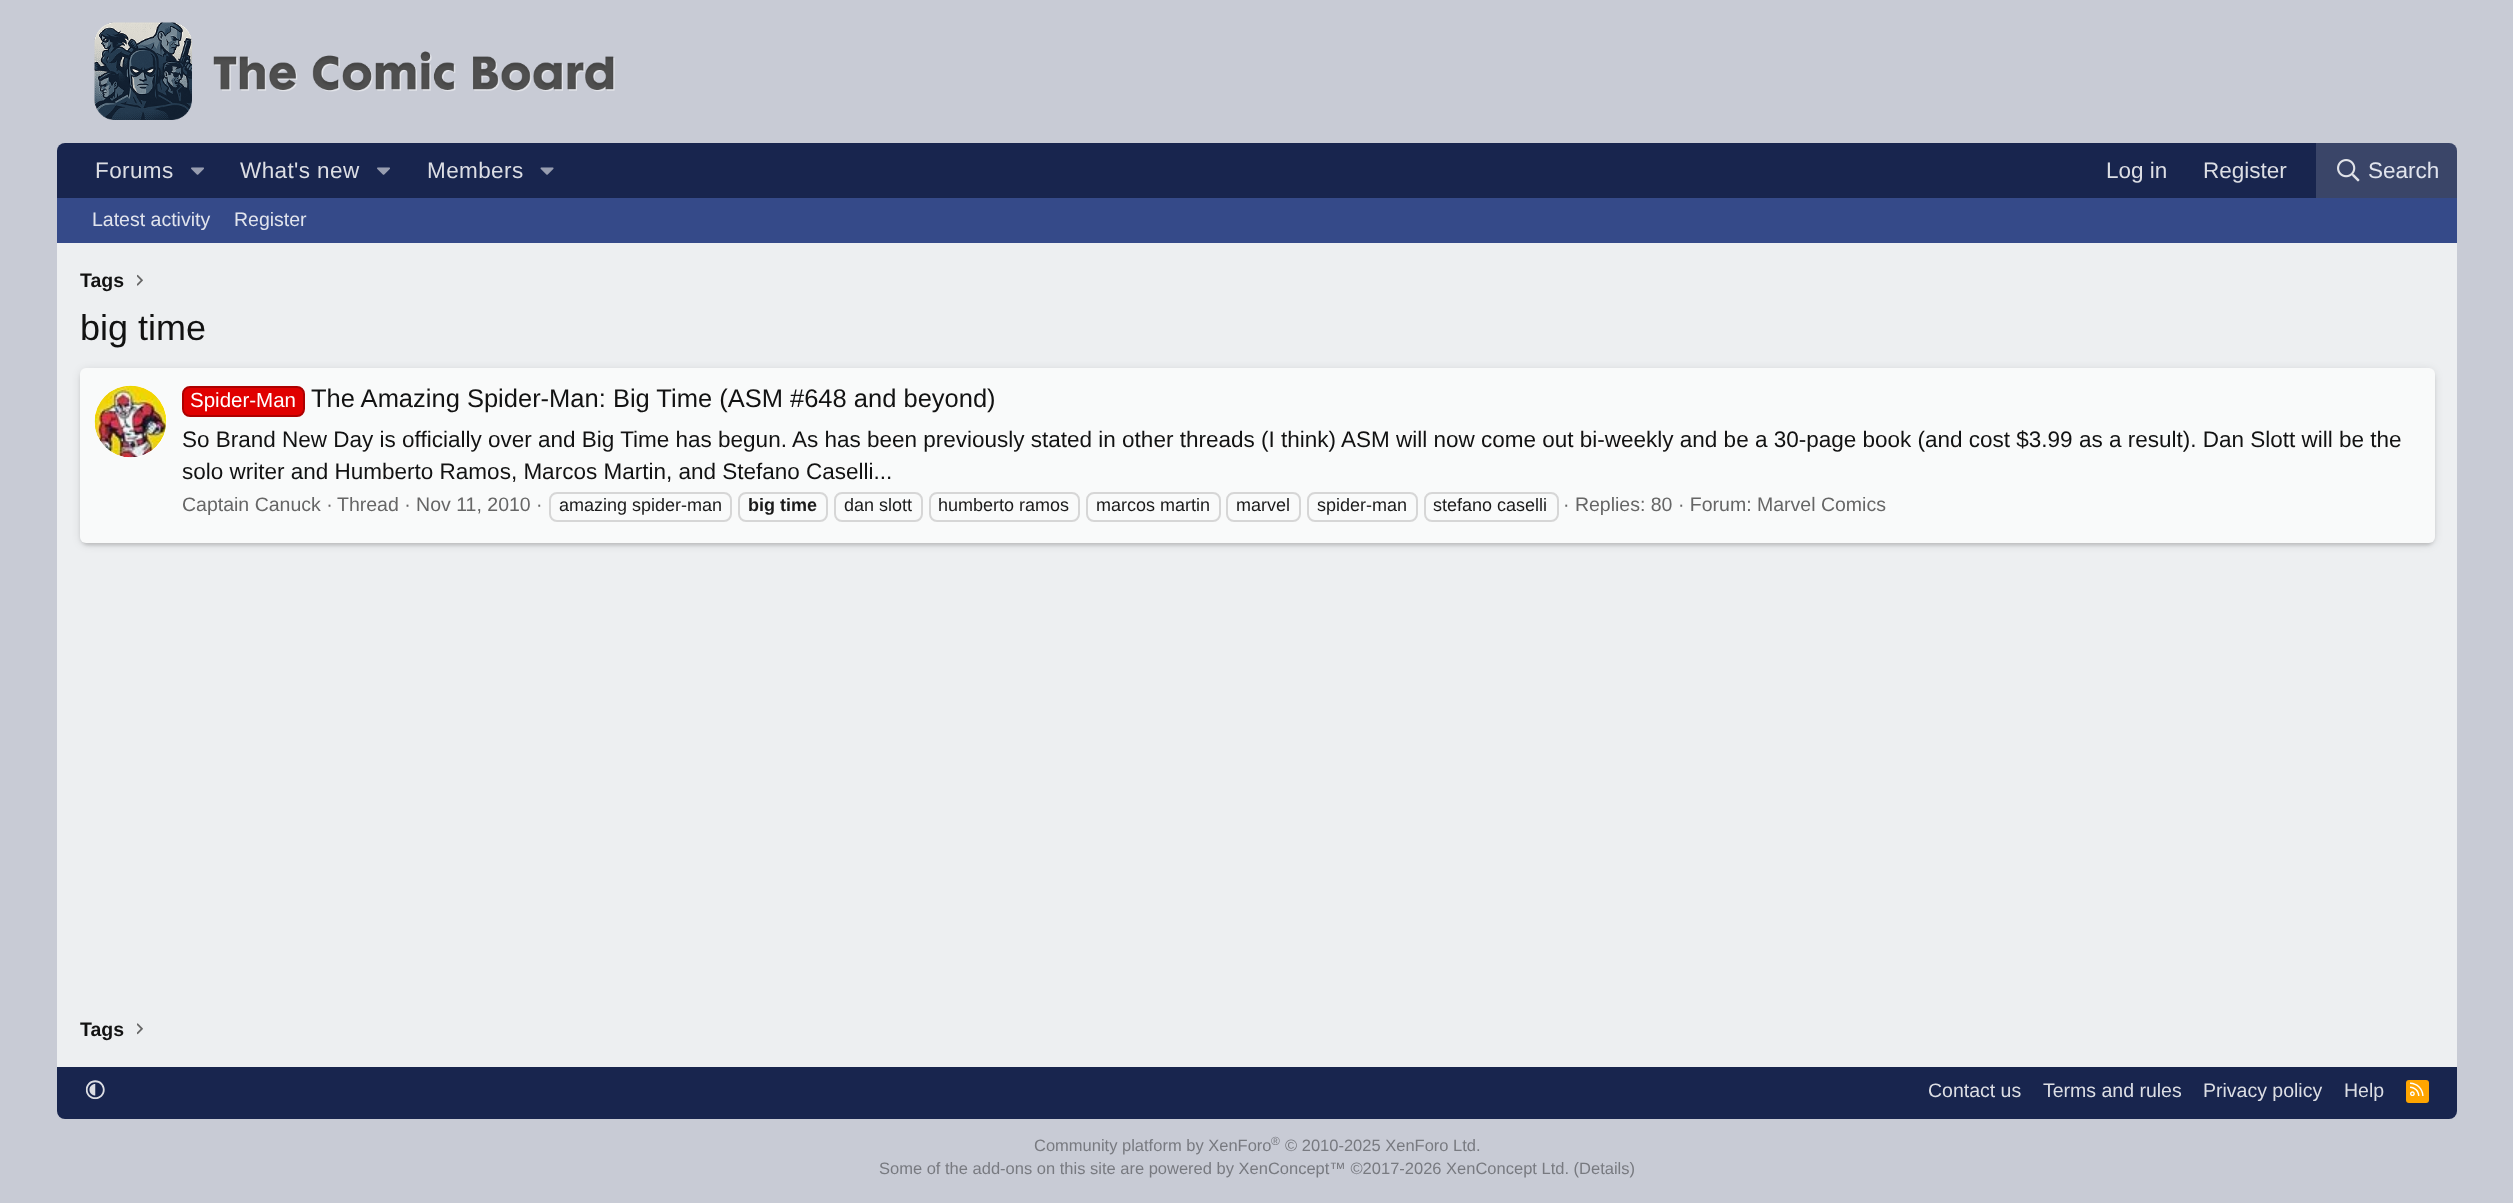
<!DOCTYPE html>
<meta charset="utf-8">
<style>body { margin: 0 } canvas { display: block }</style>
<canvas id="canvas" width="2513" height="1203"></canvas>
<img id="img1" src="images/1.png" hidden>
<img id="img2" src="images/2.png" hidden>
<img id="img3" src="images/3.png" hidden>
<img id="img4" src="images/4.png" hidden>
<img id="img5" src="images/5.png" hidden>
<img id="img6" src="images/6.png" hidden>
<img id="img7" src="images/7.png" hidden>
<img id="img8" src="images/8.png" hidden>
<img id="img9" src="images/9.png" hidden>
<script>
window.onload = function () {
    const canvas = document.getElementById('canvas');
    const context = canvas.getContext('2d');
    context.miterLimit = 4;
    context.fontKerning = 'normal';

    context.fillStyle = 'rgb(200, 203, 213)';
    context.fillRect(0, 0, 2513, 1203);
    context.drawImage(document.getElementById('img1'), 94, 22, 521, 98);
    context.fillStyle = 'rgb(24, 37, 78)';
    context.beginPath();
    context.roundRect(57, 143, 2400, 55, [8, 8, 0, 0]);
    context.fill();
    context.drawImage(document.getElementById('img2'), 191, 167, 13, 8);
    context.drawImage(document.getElementById('img2'), 377, 167, 13, 8);
    context.drawImage(document.getElementById('img3'), 540, 167, 14, 8);
    context.fillStyle = 'rgba(255, 255, 255, 0.15)';
    context.beginPath();
    context.roundRect(2316, 143, 141, 55, [0, 8, 0, 0]);
    context.fill();
    context.drawImage(document.getElementById('img4'), 2337, 159, 23, 23);
    context.fillStyle = 'rgb(53, 74, 137)';
    context.fillRect(57, 198, 2400, 45);
    context.fillStyle = 'rgb(237, 239, 241)';
    context.fillRect(57, 243, 2400, 824);
    context.drawImage(document.getElementById('img5'), 137, 274, 6, 12);
    context.fillStyle = 'rgba(0, 0, 0, 0.1)';
    context.filter = 'blur(4px)';
    context.beginPath();
    context.roundRect(80, 369, 2355, 176, 8);
    context.fill();
    context.filter = 'none';
    context.fillStyle = 'rgba(0, 0, 0, 0.06)';
    context.filter = 'blur(1px)';
    context.beginPath();
    context.roundRect(83, 375, 2349, 170, 5);
    context.fill();
    context.filter = 'none';
    context.fillStyle = 'rgba(0, 0, 0, 0.07)';
    context.filter = 'blur(1.5px)';
    context.beginPath();
    context.roundRect(80, 371, 2355, 175, 8);
    context.fill();
    context.filter = 'none';
    context.fillStyle = 'rgb(249, 250, 250)';
    context.beginPath();
    context.roundRect(80, 368, 2355, 175, 6);
    context.fill();
    context.fillStyle = 'rgb(255, 255, 255)';
    context.beginPath();
    context.arc(131, 422, 36, 0, 2 * Math.PI);
    context.fill();
    context.drawImage(document.getElementById('img6'), 94, 385, 73, 73);
    context.fillStyle = 'rgb(224, 0, 0)';
    context.beginPath();
    context.roundRect(183, 387, 121, 29, 7);
    context.fill();
    context.strokeStyle = 'rgb(173, 0, 0)';
    context.lineWidth = 2;
    context.stroke();
    context.beginPath();
    context.roundRect(550, 493, 181, 28, 7);
    context.strokeStyle = 'rgb(214, 214, 214)';
    context.stroke();
    context.beginPath();
    context.roundRect(739, 493, 88, 28, 7);
    context.stroke();
    context.beginPath();
    context.roundRect(835, 493, 87, 28, 7);
    context.stroke();
    context.beginPath();
    context.roundRect(930, 493, 149, 28, 7);
    context.stroke();
    context.beginPath();
    context.roundRect(1087, 493, 133, 28, 7);
    context.stroke();
    context.beginPath();
    context.roundRect(1227, 493, 73, 28, 7);
    context.stroke();
    context.beginPath();
    context.roundRect(1308, 493, 109, 28, 7);
    context.stroke();
    context.beginPath();
    context.roundRect(1425, 493, 133, 28, 7);
    context.stroke();
    context.drawImage(document.getElementById('img7'), 137, 1023, 6, 12);
    context.fillStyle = 'rgb(24, 37, 78)';
    context.beginPath();
    context.roundRect(57, 1067, 2400, 52, [0, 0, 8, 8]);
    context.fill();
    context.drawImage(document.getElementById('img8'), 85, 1080, 20, 20);
    context.fillStyle = 'rgb(255, 165, 0)';
    context.beginPath();
    context.roundRect(2406, 1080, 23, 23, 3);
    context.fill();
    context.drawImage(document.getElementById('img9'), 2410, 1082, 14, 14);
    context.letterSpacing = '0.4px';
    context.font = '22.5px Liberation Sans';
    context.fillStyle = 'rgb(220, 222, 228)';
    context.fillText('Forums', 95, 178);
    context.fillText('What\'s new', 240, 178);
    context.fillText('Members', 427, 178);
    context.letterSpacing = '0px';
    context.fillText('Log in', 2106, 178);
    context.fillText('Register', 2203, 178);
    context.fillStyle = 'rgb(225, 228, 237)';
    context.fillText('Search', 2368, 178);
    context.font = '19.5px Liberation Sans';
    context.fillText('Latest activity', 92, 226);
    context.fillText('Register', 234, 226);
    context.font = 'bold 19.5px Liberation Sans';
    context.fillStyle = 'rgb(18, 18, 18)';
    context.fillText('Tags', 80, 287);
    context.font = '36px Liberation Sans';
    context.fillText('big time', 80, 340);
    context.font = '20.5px Liberation Sans';
    context.fillStyle = 'rgb(255, 255, 255)';
    context.fillText('Spider-Man', 190, 407);
    context.font = '25.5px Liberation Sans';
    context.fillStyle = 'rgb(18, 18, 18)';
    context.fillText('The Amazing Spider-Man: Big Time (ASM #648 and beyond)', 311, 407);
    context.font = '22.5px Liberation Sans';
    context.fillText('So Brand New Day is officially over and Big Time has begun. As has been previously stated in other threads (I think) ASM will now come out bi-weekly and be a 30-page book (and cost $3.99 as a result). Dan Slott will be the', 182, 447);
    context.fillText('solo writer and Humberto Ramos, Marcos Martin, and Stefano Caselli...', 182, 479);
    context.font = '19.5px Liberation Sans';
    context.fillStyle = 'rgb(102, 102, 102)';
    context.fillText('Captain Canuck ·', 182, 511);
    context.fillText('Thread · Nov 11, 2010 ·', 337, 511);
    context.font = '18px Liberation Sans';
    context.fillStyle = 'rgb(26, 26, 26)';
    context.fillText('amazing spider-man', 559, 511);
    context.font = 'bold 18px Liberation Sans';
    context.fillText('big time', 748, 511);
    context.font = '18px Liberation Sans';
    context.fillText('dan slott', 844, 511);
    context.fillText('humberto ramos', 938, 511);
    context.fillText('marcos martin', 1096, 511);
    context.fillText('marvel', 1236, 511);
    context.fillText('spider-man', 1317, 511);
    context.fillText('stefano caselli', 1433, 511);
    context.font = '19.5px Liberation Sans';
    context.fillStyle = 'rgb(102, 102, 102)';
    context.fillText('· Replies: 80 · Forum: Marvel Comics', 1563, 511);
    context.font = 'bold 19.5px Liberation Sans';
    context.fillStyle = 'rgb(18, 18, 18)';
    context.fillText('Tags', 80, 1036);
    context.font = '19.5px Liberation Sans';
    context.fillStyle = 'rgb(220, 222, 228)';
    context.fillText('Contact us', 1928, 1097);
    context.fillText('Terms and rules', 2043, 1097);
    context.fillText('Privacy policy', 2203, 1097);
    context.fillText('Help', 2344, 1097);
    context.font = '16.5px Liberation Sans';
    context.fillStyle = 'rgb(120, 122, 128)';
    context.fillText('Community platform by XenForo', 1034, 1151);
    context.font = '12px Liberation Sans';
    context.fillText('®', 1271, 1145);
    context.font = '16.5px Liberation Sans';
    context.fillText('© 2010-2025 XenForo Ltd.', 1285, 1151);
    context.fillText('Some of the add-ons on this site are powered by XenConcept™ ©2017-2026 XenConcept Ltd. (Details)', 879, 1174);
};
</script>
